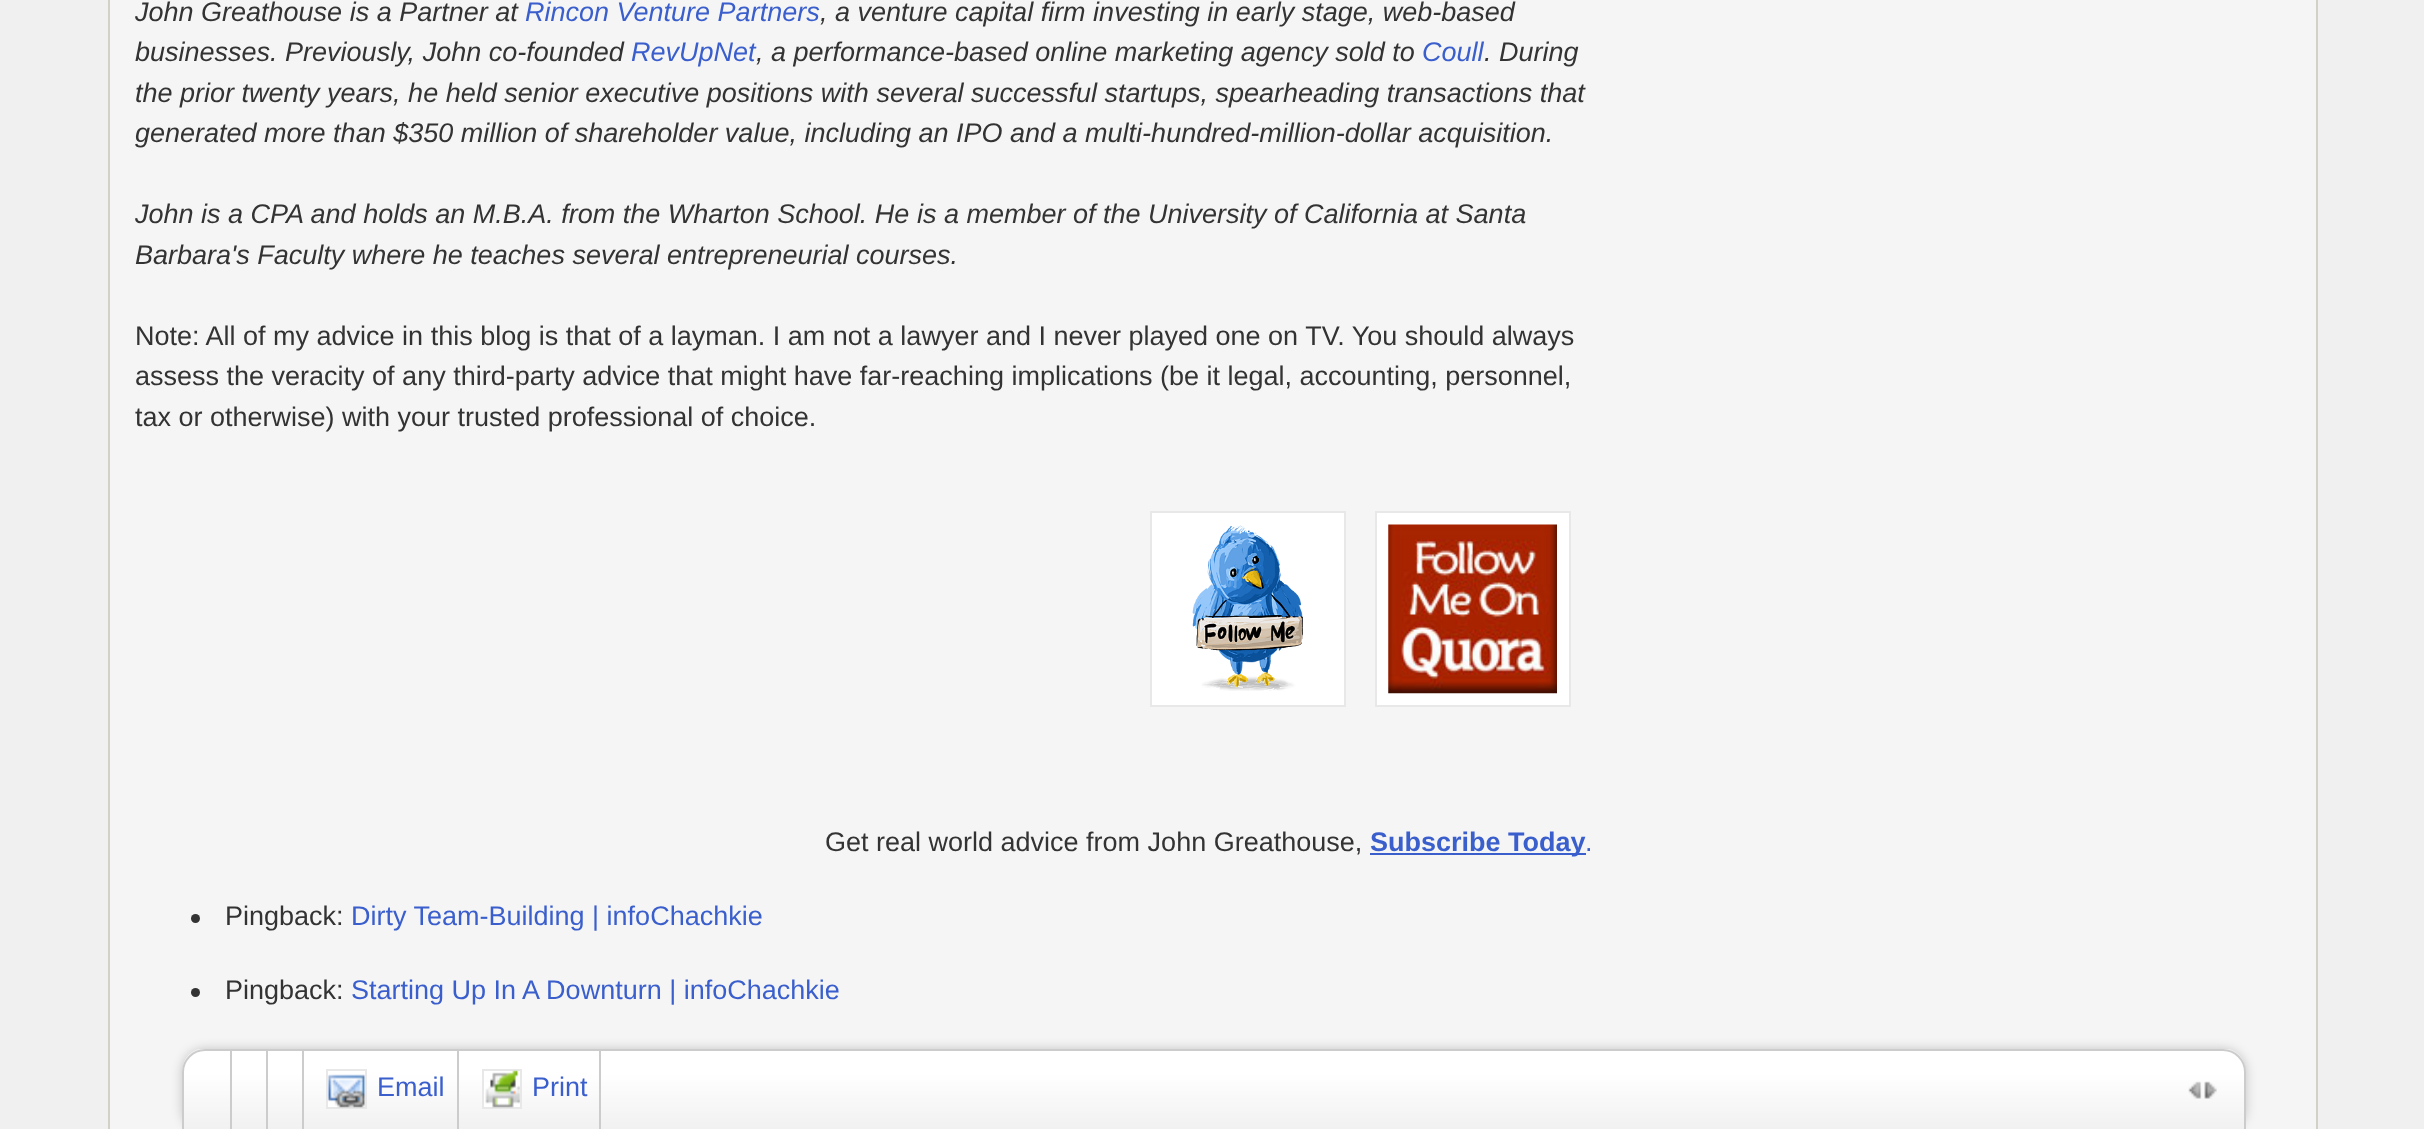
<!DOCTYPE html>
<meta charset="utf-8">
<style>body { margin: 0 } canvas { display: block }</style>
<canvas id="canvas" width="2424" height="1129"></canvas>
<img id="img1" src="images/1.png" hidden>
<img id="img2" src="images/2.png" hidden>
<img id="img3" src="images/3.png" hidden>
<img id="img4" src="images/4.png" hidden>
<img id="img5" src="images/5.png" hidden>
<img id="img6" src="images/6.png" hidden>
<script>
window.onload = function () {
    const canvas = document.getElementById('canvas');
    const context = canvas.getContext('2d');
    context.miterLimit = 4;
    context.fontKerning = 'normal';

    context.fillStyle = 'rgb(240, 240, 240)';
    context.fillRect(0, 0, 2424, 1129);
    context.fillStyle = 'rgb(245, 245, 245)';
    context.beginPath();
    context.rect(109, -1, 2208, 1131);
    context.fill();
    context.strokeStyle = 'rgb(211, 209, 199)';
    context.lineWidth = 2;
    context.stroke();
    context.fillStyle = 'rgb(255, 255, 255)';
    context.beginPath();
    context.rect(1151, 512, 194, 194);
    context.fill();
    context.strokeStyle = 'rgb(232, 232, 232)';
    context.stroke();
    context.beginPath();
    context.rect(1376, 512, 194, 194);
    context.fill();
    context.stroke();
    context.drawImage(document.getElementById('img1'), 1192, 525, 111, 166);
    context.drawImage(document.getElementById('img2'), 1388, 524, 169, 170);
    context.fillStyle = 'rgb(58, 95, 205)';
    context.fillRect(1370, 853, 216, 2);
    context.fillStyle = 'rgb(51, 51, 51)';
    context.beginPath();
    context.arc(195.5, 918.5, 4.5, 0, 2 * Math.PI);
    context.fill();
    context.beginPath();
    context.arc(195.5, 992.5, 4.5, 0, 2 * Math.PI);
    context.fill();
    context.fillStyle = 'rgba(0, 0, 0, 0.2)';
    context.filter = 'blur(5.5px)';
    context.beginPath();
    context.roundRect(182, 1049, 2064, 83, 23);
    context.fill();
    context.filter = 'none';
    context.drawImage(document.getElementById('img3'), 182, 1049, 2064, 80);
    context.beginPath();
    context.moveTo(205, 1050);
    context.lineTo(2223, 1050);
    context.bezierCurveTo(2235, 1050, 2245, 1060, 2245, 1072);
    context.lineTo(2245, 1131);
    context.lineTo(183, 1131);
    context.lineTo(183, 1072);
    context.bezierCurveTo(183, 1060, 193, 1050, 205, 1050);
    context.closePath();
    context.strokeStyle = 'rgb(204, 204, 204)';
    context.stroke();
    context.fillStyle = 'rgb(204, 204, 204)';
    context.fillRect(230, 1051, 2, 78);
    context.fillRect(266, 1051, 2, 78);
    context.fillRect(302, 1051, 2, 78);
    context.fillRect(457, 1051, 2, 78);
    context.fillStyle = 'rgb(255, 255, 255)';
    context.fillRect(328, 1082, 37, 25);
    context.strokeStyle = 'rgb(232, 232, 232)';
    context.strokeRect(327, 1070, 39, 38);
    context.drawImage(document.getElementById('img4'), 328, 1074, 37, 34);
    context.fillStyle = 'rgb(204, 204, 204)';
    context.fillRect(599, 1051, 2, 78);
    context.fillStyle = 'rgb(255, 255, 255)';
    context.fillRect(484, 1082, 36, 25);
    context.strokeRect(483, 1070, 38, 38);
    context.drawImage(document.getElementById('img5'), 485, 1070, 35, 38);
    context.drawImage(document.getElementById('img6'), 2188, 1081, 29, 18);
    context.font = 'italic 27px Liberation Sans';
    context.fillStyle = 'rgb(51, 51, 51)';
    context.fillText('John Greathouse is a Partner at', 135, 21);
    context.fillStyle = 'rgb(58, 95, 205)';
    context.fillText('Rincon Venture Partners', 525, 21);
    context.fillStyle = 'rgb(51, 51, 51)';
    context.fillText(', a venture capital firm investing in early stage, web-based', 820, 21);
    context.fillText('businesses. Previously, John co-founded', 135, 61);
    context.fillStyle = 'rgb(58, 95, 205)';
    context.fillText('RevUpNet', 631, 61);
    context.fillStyle = 'rgb(51, 51, 51)';
    context.fillText(', a performance-based online marketing agency sold to', 756, 61);
    context.fillStyle = 'rgb(58, 95, 205)';
    context.fillText('Coull', 1422, 61);
    context.fillStyle = 'rgb(51, 51, 51)';
    context.fillText('. During', 1484, 61);
    context.fillText('the prior twenty years, he held senior executive positions with several successful startups, spearheading transactions that', 135, 102);
    context.fillText('generated more than $350 million of shareholder value, including an IPO and a multi-hundred-million-dollar acquisition.', 135, 142);
    context.fillText('John is a CPA and holds an M.B.A. from the Wharton School. He is a member of the University of California at Santa', 135, 223);
    context.fillText('Barbara\'s Faculty where he teaches several entrepreneurial courses.', 135, 264);
    context.font = '27px Liberation Sans';
    context.fillText('Note: All of my advice in this blog is that of a layman. I am not a lawyer and I never played one on TV. You should always', 135, 345);
    context.fillText('assess the veracity of any third-party advice that might have far-reaching implications (be it legal, accounting, personnel,', 135, 385);
    context.fillText('tax or otherwise) with your trusted professional of choice.', 135, 426);
    context.fillText('Get real world advice from John Greathouse,', 825, 851);
    context.font = 'bold 27px Liberation Sans';
    context.fillStyle = 'rgb(58, 95, 205)';
    context.fillText('Subscribe Today', 1370, 851);
    context.font = '27px Liberation Sans';
    context.fillText('.', 1585, 851);
    context.fillStyle = 'rgb(51, 51, 51)';
    context.fillText('Pingback:', 225, 925);
    context.fillStyle = 'rgb(58, 95, 205)';
    context.fillText('Dirty Team-Building | infoChachkie', 351, 925);
    context.fillStyle = 'rgb(51, 51, 51)';
    context.fillText('Pingback:', 225, 999);
    context.fillStyle = 'rgb(58, 95, 205)';
    context.fillText('Starting Up In A Downturn | infoChachkie', 351, 999);
    context.fillText('Email', 377, 1096);
    context.fillText('Print', 532, 1096);
};
</script>
